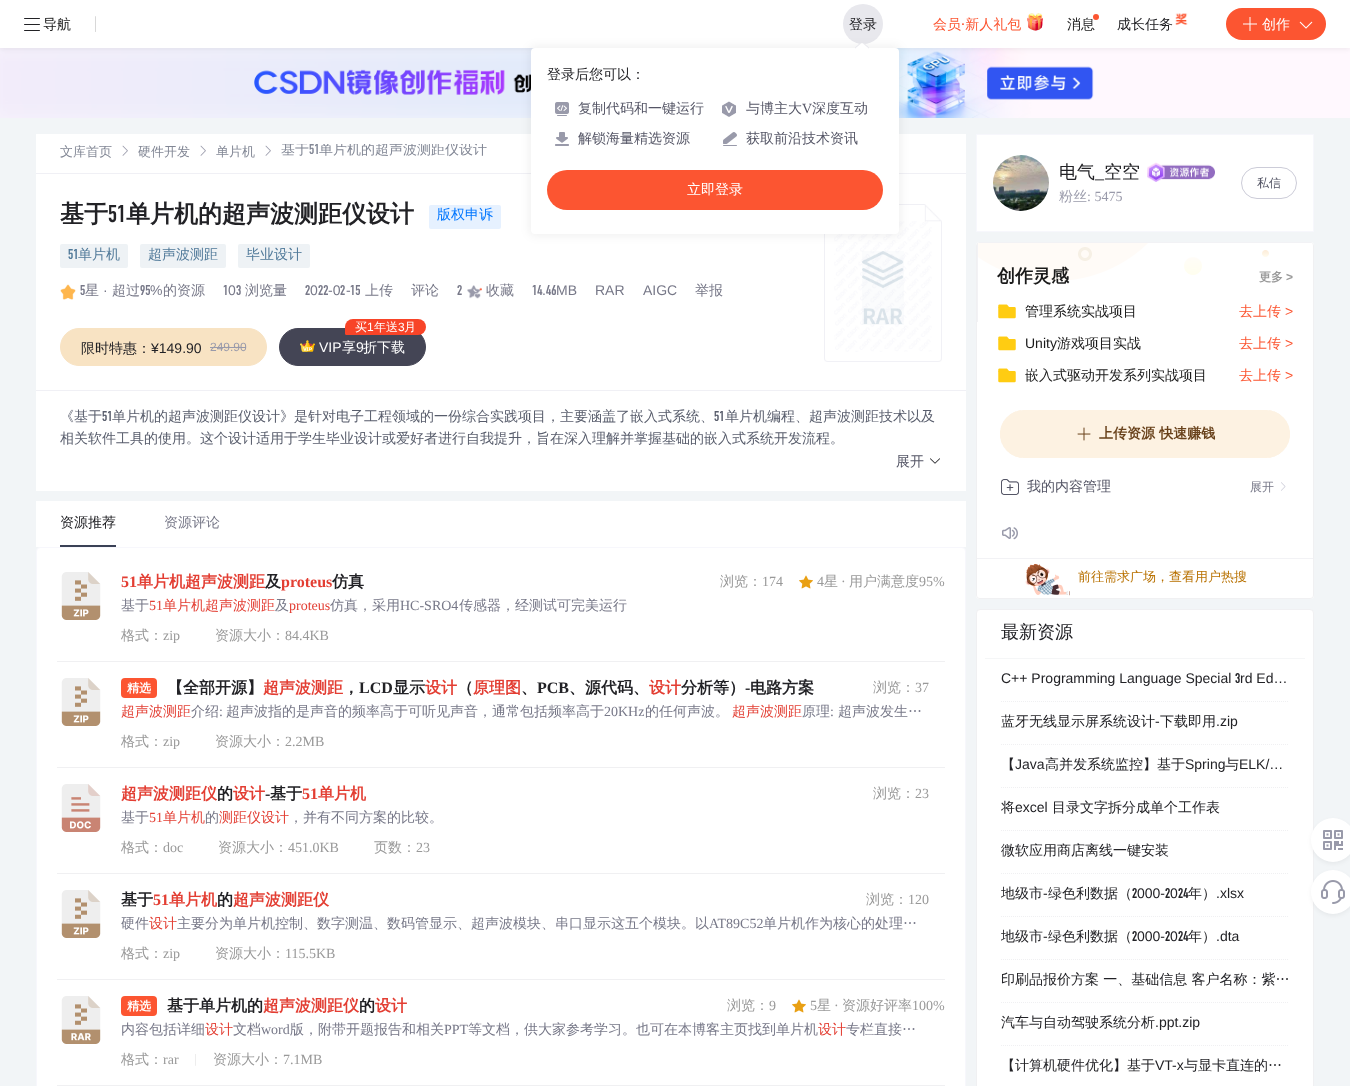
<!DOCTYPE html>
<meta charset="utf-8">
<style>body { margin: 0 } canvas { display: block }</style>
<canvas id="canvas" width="1350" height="1086"></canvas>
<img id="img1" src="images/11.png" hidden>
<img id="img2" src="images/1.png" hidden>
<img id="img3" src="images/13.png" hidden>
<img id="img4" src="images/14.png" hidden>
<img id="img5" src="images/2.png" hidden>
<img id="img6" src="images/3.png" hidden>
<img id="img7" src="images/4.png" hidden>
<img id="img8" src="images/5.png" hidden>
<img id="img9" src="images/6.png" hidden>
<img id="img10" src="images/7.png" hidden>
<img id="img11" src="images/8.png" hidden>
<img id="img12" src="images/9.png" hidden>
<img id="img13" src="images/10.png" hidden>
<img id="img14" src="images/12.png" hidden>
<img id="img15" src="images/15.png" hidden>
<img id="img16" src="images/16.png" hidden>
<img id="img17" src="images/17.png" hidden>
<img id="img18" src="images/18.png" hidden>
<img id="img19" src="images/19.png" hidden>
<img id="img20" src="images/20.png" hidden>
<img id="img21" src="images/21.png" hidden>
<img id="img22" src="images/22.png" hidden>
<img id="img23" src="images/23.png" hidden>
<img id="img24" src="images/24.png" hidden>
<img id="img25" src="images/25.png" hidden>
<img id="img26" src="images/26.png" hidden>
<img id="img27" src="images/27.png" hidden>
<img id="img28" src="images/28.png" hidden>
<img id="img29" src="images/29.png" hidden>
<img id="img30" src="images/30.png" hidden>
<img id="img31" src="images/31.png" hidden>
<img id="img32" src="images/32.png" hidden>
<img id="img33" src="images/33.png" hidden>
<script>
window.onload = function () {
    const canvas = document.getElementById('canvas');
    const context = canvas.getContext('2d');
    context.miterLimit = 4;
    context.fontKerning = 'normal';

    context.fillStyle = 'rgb(242, 245, 247)';
    context.fillRect(0, 0, 1350, 1086);
    context.drawImage(document.getElementById('img1'), 0, 48, 1350, 70);
    context.fillStyle = 'rgba(0, 0, 0, 0.05)';
    context.filter = 'blur(2px)';
    context.beginPath();
    context.rect(0, 2, 1350, 48);
    context.fill();
    context.filter = 'none';
    context.fillStyle = 'rgb(255, 255, 255)';
    context.fillRect(0, 0, 1350, 48);
    context.drawImage(document.getElementById('img2'), 24, 18, 16, 13);
    context.fillStyle = 'rgb(216, 216, 216)';
    context.beginPath();
    context.roundRect(95, 16, 1, 16, 0.5);
    context.fill();
    context.fillStyle = 'rgb(232, 232, 237)';
    context.beginPath();
    context.arc(863, 24, 20, 0, 2 * Math.PI);
    context.fill();
    context.fillStyle = 'rgb(255, 255, 255)';
    context.fillRect(36, 134, 930, 357);
    context.fillStyle = 'rgb(240, 240, 245)';
    context.fillRect(36, 173, 930, 1);
    context.drawImage(document.getElementById('img3'), 824, 204, 118, 158);
    context.drawImage(document.getElementById('img4'), 862, 251, 42, 74);
    context.fillStyle = 'rgba(0, 0, 0, 0.06)';
    context.filter = 'blur(5px)';
    context.beginPath();
    context.roundRect(529, 46, 372, 190, 6);
    context.fill();
    context.filter = 'none';
    context.fillStyle = 'rgb(255, 255, 255)';
    context.beginPath();
    context.roundRect(531, 48, 368, 186, 4);
    context.fill();
    context.drawImage(document.getElementById('img5'), 855, 43, 14, 6);
    context.drawImage(document.getElementById('img6'), 555, 102, 14, 14);
    context.drawImage(document.getElementById('img7'), 722, 101, 14, 16);
    context.drawImage(document.getElementById('img8'), 555, 132, 14, 14);
    context.drawImage(document.getElementById('img9'), 723, 132, 14, 14);
    context.fillStyle = 'rgb(252, 85, 49)';
    context.beginPath();
    context.roundRect(547, 170, 336, 40, 20);
    context.fill();
    context.drawImage(document.getElementById('img10'), 1027, 13, 16, 18);
    context.drawImage(document.getElementById('img11'), 1175, 13, 13, 12);
    context.beginPath();
    context.roundRect(1226, 8, 100, 32, 16);
    context.fill();
    context.drawImage(document.getElementById('img12'), 1243, 17, 14, 14);
    context.drawImage(document.getElementById('img13'), 1299, 21, 14, 8);
    context.drawImage(document.getElementById('img14'), 122, 145, 6, 11);
    context.drawImage(document.getElementById('img14'), 200, 145, 6, 11);
    context.drawImage(document.getElementById('img14'), 265, 145, 6, 11);
    context.fillStyle = 'rgb(230, 241, 255)';
    context.beginPath();
    context.roundRect(429, 205, 72, 24, 2);
    context.fill();
    context.fillStyle = 'rgb(238, 242, 245)';
    context.beginPath();
    context.roundRect(60, 244, 68, 24, 2);
    context.fill();
    context.beginPath();
    context.roundRect(140, 244, 86, 24, 2);
    context.fill();
    context.beginPath();
    context.roundRect(238, 244, 72, 24, 2);
    context.fill();
    context.drawImage(document.getElementById('img15'), 60, 284, 16, 16);
    context.drawImage(document.getElementById('img16'), 467, 285, 15, 14);
    context.fillStyle = 'rgb(248, 227, 195)';
    context.beginPath();
    context.roundRect(60.5, 328.5, 206, 37, 18.5);
    context.fill();
    context.strokeStyle = 'rgb(248, 227, 195)';
    context.stroke();
    context.fillStyle = 'rgb(153, 154, 170)';
    context.fillRect(210, 347, 36, 1);
    context.fillStyle = 'rgb(68, 69, 85)';
    context.beginPath();
    context.roundRect(279.5, 328.5, 146, 37, 18.5);
    context.fill();
    context.strokeStyle = 'rgb(68, 69, 85)';
    context.stroke();
    context.fillStyle = 'rgb(248, 68, 40)';
    context.beginPath();
    context.roundRect(345, 319, 81, 16, [8, 8, 8, 1.5]);
    context.fill();
    context.drawImage(document.getElementById('img17'), 300, 340, 15, 12);
    context.fillStyle = 'rgb(240, 240, 245)';
    context.fillRect(36, 390, 930, 1);
    context.drawImage(document.getElementById('img18'), 930, 458, 10, 6);
    context.fillStyle = 'rgb(255, 255, 255)';
    context.fillRect(36, 501, 930, 46);
    context.fillStyle = 'rgb(58, 65, 86)';
    context.fillRect(60, 545, 56, 2);
    context.fillStyle = 'rgb(255, 255, 255)';
    context.beginPath();
    context.roundRect(36.5, 547.5, 929, 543, 3.5);
    context.fill();
    context.strokeStyle = 'rgb(247, 247, 252)';
    context.stroke();
    context.drawImage(document.getElementById('img19'), 61, 572, 40, 48);
    context.drawImage(document.getElementById('img20'), 799, 575, 14, 14);
    context.fillStyle = 'rgb(240, 240, 242)';
    context.fillRect(57, 661, 888, 1);
    context.drawImage(document.getElementById('img19'), 61, 678, 40, 48);
    context.fillStyle = 'rgb(252, 85, 49)';
    context.beginPath();
    context.roundRect(121, 678, 36, 20, 4);
    context.fill();
    context.fillStyle = 'rgb(240, 240, 242)';
    context.fillRect(57, 767, 888, 1);
    context.drawImage(document.getElementById('img21'), 61, 784, 40, 48);
    context.fillRect(57, 873, 888, 1);
    context.drawImage(document.getElementById('img19'), 61, 890, 40, 48);
    context.fillRect(57, 979, 888, 1);
    context.drawImage(document.getElementById('img22'), 61, 996, 40, 48);
    context.fillStyle = 'rgb(252, 85, 49)';
    context.beginPath();
    context.roundRect(121, 996, 36, 20, 4);
    context.fill();
    context.drawImage(document.getElementById('img20'), 792, 999, 14, 14);
    context.fillStyle = 'rgb(240, 240, 242)';
    context.fillRect(57, 1085, 888, 1);
    context.fillStyle = 'rgb(255, 255, 255)';
    context.beginPath();
    context.rect(976.5, 134.5, 337, 97);
    context.fill();
    context.stroke();
    context.drawImage(document.getElementById('img23'), 993, 155, 56, 56);
    context.drawImage(document.getElementById('img24'), 1147, 162, 68, 20);
    context.beginPath();
    context.roundRect(1241.5, 167.5, 55, 31, 15.5);
    context.strokeStyle = 'rgb(204, 204, 216)';
    context.stroke();
    context.beginPath();
    context.roundRect(976, 242, 338, 357, 4);
    context.fill();
    context.drawImage(document.getElementById('img25'), 977, 242, 335, 80);
    context.fillStyle = 'rgb(240, 240, 242)';
    context.beginPath();
    context.moveTo(980, 242);
    context.lineTo(1310, 242);
    context.bezierCurveTo(1312, 242, 1314, 244, 1314, 246);
    context.lineTo(1314, 595);
    context.bezierCurveTo(1314, 597, 1312, 599, 1310, 599);
    context.lineTo(980, 599);
    context.bezierCurveTo(978, 599, 976, 597, 976, 595);
    context.lineTo(976, 246);
    context.bezierCurveTo(976, 244, 978, 242, 980, 242);
    context.closePath();
    context.moveTo(980, 242);
    context.lineTo(1310, 242);
    context.bezierCurveTo(1312, 242, 1313, 244, 1313, 246);
    context.lineTo(1313, 595);
    context.bezierCurveTo(1313, 597, 1312, 598, 1310, 598);
    context.lineTo(980, 598);
    context.bezierCurveTo(978, 598, 977, 597, 977, 595);
    context.lineTo(977, 246);
    context.bezierCurveTo(977, 244, 978, 242, 980, 242);
    context.closePath();
    context.fill('evenodd');
    context.drawImage(document.getElementById('img26'), 998, 304, 18, 15);
    context.drawImage(document.getElementById('img26'), 998, 336, 18, 15);
    context.drawImage(document.getElementById('img26'), 998, 368, 18, 15);
    context.fillStyle = 'rgb(253, 242, 226)';
    context.beginPath();
    context.roundRect(1000, 410, 290, 48, 24);
    context.fill();
    context.beginPath();
    context.moveTo(1024, 410.5);
    context.lineTo(1266, 410.5);
    context.bezierCurveTo(1279, 410.5, 1289.5, 421, 1289.5, 434);
    context.bezierCurveTo(1289.5, 447, 1279, 457.5, 1266, 457.5);
    context.lineTo(1024, 457.5);
    context.bezierCurveTo(1011, 457.5, 1000.5, 447, 1000.5, 434);
    context.bezierCurveTo(1000.5, 421, 1011, 410.5, 1024, 410.5);
    context.closePath();
    context.strokeStyle = 'rgb(253, 242, 226)';
    context.setLineDash([3, 2]);
    context.stroke();
    context.drawImage(document.getElementById('img27'), 1077, 427, 14, 14);
    context.drawImage(document.getElementById('img28'), 1001, 479, 18, 16);
    context.drawImage(document.getElementById('img29'), 1281, 482, 5, 9);
    context.drawImage(document.getElementById('img30'), 1002, 527, 16, 13);
    context.fillStyle = 'rgb(242, 242, 245)';
    context.fillRect(977, 558, 336, 1);
    context.drawImage(document.getElementById('img31'), 1025, 563, 45, 33);
    context.fillStyle = 'rgb(255, 255, 255)';
    context.beginPath();
    context.roundRect(976.5, 609.5, 337, 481, 3.5);
    context.fill();
    context.strokeStyle = 'rgb(240, 240, 242)';
    context.setLineDash([]);
    context.stroke();
    context.fillStyle = 'rgb(245, 246, 247)';
    context.fillRect(985, 658, 320, 1);
    context.beginPath();
    context.moveTo(1001, 701.5);
    context.lineTo(1289, 701.5);
    context.setLineDash([1, 1]);
    context.stroke();
    context.beginPath();
    context.moveTo(1001, 744.5);
    context.lineTo(1289, 744.5);
    context.stroke();
    context.beginPath();
    context.moveTo(1001, 787.5);
    context.lineTo(1289, 787.5);
    context.stroke();
    context.beginPath();
    context.moveTo(1001, 830.5);
    context.lineTo(1289, 830.5);
    context.stroke();
    context.beginPath();
    context.moveTo(1001, 873.5);
    context.lineTo(1289, 873.5);
    context.stroke();
    context.beginPath();
    context.moveTo(1001, 916.5);
    context.lineTo(1289, 916.5);
    context.stroke();
    context.beginPath();
    context.moveTo(1001, 959.5);
    context.lineTo(1289, 959.5);
    context.stroke();
    context.beginPath();
    context.moveTo(1001, 1002.5);
    context.lineTo(1289, 1002.5);
    context.stroke();
    context.beginPath();
    context.moveTo(1001, 1045.5);
    context.lineTo(1289, 1045.5);
    context.stroke();
    context.fillStyle = 'rgba(0, 0, 0, 0.05)';
    context.filter = 'blur(2px)';
    context.beginPath();
    context.roundRect(1311, 820, 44, 44, 22);
    context.fill();
    context.filter = 'none';
    context.fillStyle = 'rgb(255, 255, 255)';
    context.beginPath();
    context.arc(1333, 840, 22, 0, 2 * Math.PI);
    context.fill();
    context.drawImage(document.getElementById('img32'), 1323, 830, 20, 20);
    context.fillStyle = 'rgba(0, 0, 0, 0.05)';
    context.filter = 'blur(2px)';
    context.beginPath();
    context.roundRect(1311, 872, 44, 44, 22);
    context.fill();
    context.filter = 'none';
    context.fillStyle = 'rgb(255, 255, 255)';
    context.beginPath();
    context.arc(1333, 892, 22, 0, 2 * Math.PI);
    context.fill();
    context.drawImage(document.getElementById('img33'), 1321, 880, 24, 24);
    context.font = '500 14px WenQuanYi Zen Hei';
    context.fillStyle = 'rgb(26, 26, 26)';
    context.fillText('导航', 43, 29);
    context.fillStyle = 'rgb(34, 34, 38)';
    context.fillText('登录', 849, 29);
    context.fillText('登录后您可以：', 547, 79);
    context.fillStyle = 'rgb(85, 86, 102)';
    context.fillText('复制代码和一键运行', 578, 113);
    context.fillText('与博主大', 746, 113);
    context.font = '14px Liberation Serif';
    context.fillText('V', 802, 113);
    context.font = '500 14px WenQuanYi Zen Hei';
    context.fillText('深度互动', 812, 113);
    context.fillText('解锁海量精选资源', 578, 143);
    context.fillText('获取前沿技术资讯', 746, 143);
    context.fillStyle = 'rgb(255, 255, 255)';
    context.fillText('立即登录', 687, 194);
    context.fillStyle = 'rgb(252, 85, 49)';
    context.fillText('会员 新人礼包', 933, 29);
    context.font = '500 14px Roboto';
    context.fillText('·', 961, 29);
    context.font = '500 14px WenQuanYi Zen Hei';
    context.fillStyle = 'rgb(26, 26, 26)';
    context.fillText('消息', 1067, 29);
    context.fillStyle = 'rgb(252, 85, 49)';
    context.beginPath();
    context.arc(1096, 17, 3, 0, 2 * Math.PI);
    context.fill();
    context.fillStyle = 'rgb(34, 34, 38)';
    context.fillText('成长任务', 1117, 29);
    context.fillStyle = 'rgb(255, 255, 255)';
    context.fillText('创作', 1262, 29);
    context.font = '500 13px WenQuanYi Zen Hei';
    context.fillStyle = 'rgb(130, 135, 149)';
    context.fillText('文库首页', 60, 156);
    context.fillText('硬件开发', 138, 156);
    context.fillText('单片机', 216, 156);
    context.save();
    context.beginPath();
    context.rect(281, 144, 206, 15);
    context.clip();
    context.font = '500 14px WenQuanYi Zen Hei';
    context.fillText('基于', 281, 154);
    context.restore();
    context.font = 'bold 14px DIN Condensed';
    context.fillText('51', 309, 154);
    context.save();
    context.beginPath();
    context.rect(281, 144, 206, 15);
    context.clip();
    context.font = '500 14px WenQuanYi Zen Hei';
    context.fillText('单片机的超声波测距仪设计', 319, 154);
    context.restore();
    context.font = 'bold 24px WenQuanYi Zen Hei';
    context.fillStyle = 'rgb(34, 34, 38)';
    context.fillText('基于', 60, 222);
    context.font = 'bold 24px DIN Condensed';
    context.fillText('51', 108, 222);
    context.font = 'bold 24px WenQuanYi Zen Hei';
    context.fillText('单片机的超声波测距仪设计', 126, 222);
    context.font = '500 14px WenQuanYi Zen Hei';
    context.fillStyle = 'rgb(0, 118, 255)';
    context.fillText('版权申诉', 437, 219);
    context.font = 'bold 14px DIN Condensed';
    context.fillStyle = 'rgb(80, 121, 153)';
    context.fillText('51', 68, 259);
    context.font = '500 14px WenQuanYi Zen Hei';
    context.fillText('单片机', 78, 259);
    context.fillText('超声波测距', 148, 259);
    context.fillText('毕业设计', 246, 259);
    context.font = 'bold 14px DIN Condensed';
    context.fillStyle = 'rgb(119, 120, 136)';
    context.fillText('5', 80, 295);
    context.font = '500 14px WenQuanYi Zen Hei';
    context.fillText('星', 85, 295);
    context.font = '14px Liberation Sans';
    context.fillText('·', 103, 295);
    context.font = '500 14px WenQuanYi Zen Hei';
    context.fillText('超过', 112, 295);
    context.font = 'bold 14px DIN Condensed';
    context.fillText('95', 140, 295);
    context.font = '14px Liberation Sans';
    context.fillText('%', 150, 295);
    context.font = '500 14px WenQuanYi Zen Hei';
    context.fillText('的资源', 163, 295);
    context.font = 'bold 14px DIN Condensed';
    context.fillText('1', 223, 295);
    context.font = '14px Liberation Sans';
    context.fillText('0', 228, 295);
    context.font = 'bold 14px DIN Condensed';
    context.fillText('3', 236, 295);
    context.font = '500 14px WenQuanYi Zen Hei';
    context.fillText('浏览量', 245, 295);
    context.font = 'bold 14px DIN Condensed';
    context.fillText('2', 305, 295);
    context.font = '14px Liberation Sans';
    context.fillText('0', 310, 295);
    context.font = 'bold 14px DIN Condensed';
    context.fillText('22', 318, 295);
    context.font = '14px Liberation Sans';
    context.fillText('-0', 328, 295);
    context.font = 'bold 14px DIN Condensed';
    context.fillText('2', 340, 295);
    context.font = '14px Liberation Sans';
    context.fillText('-', 346, 295);
    context.font = 'bold 14px DIN Condensed';
    context.fillText('15', 350, 295);
    context.font = '500 14px WenQuanYi Zen Hei';
    context.fillText('上传', 365, 295);
    context.fillText('评论', 411, 295);
    context.font = 'bold 14px DIN Condensed';
    context.fillText('2', 457, 295);
    context.font = '500 14px WenQuanYi Zen Hei';
    context.fillText('收藏', 486, 295);
    context.font = 'bold 14px DIN Condensed';
    context.fillText('14', 532, 295);
    context.font = '14px Liberation Sans';
    context.fillText('.', 542, 295);
    context.font = 'bold 14px DIN Condensed';
    context.fillText('46', 546, 295);
    context.font = '14px Liberation Sans';
    context.fillText('MB', 556, 295);
    context.fillText('RAR', 595, 295);
    context.fillText('AIGC', 643, 295);
    context.font = '500 14px WenQuanYi Zen Hei';
    context.fillText('举报', 695, 295);
    context.fillStyle = 'rgb(34, 34, 38)';
    context.fillText('限时特惠：', 81, 353);
    context.font = '14px Liberation Sans';
    context.fillText('¥149.90', 151, 353);
    context.font = '12px Liberation Sans';
    context.fillStyle = 'rgb(153, 154, 170)';
    context.fillText('249.90', 210, 351);
    context.font = '500 12px WenQuanYi Zen Hei';
    context.fillStyle = 'rgb(255, 255, 255)';
    context.fillText('买', 355, 331);
    context.font = '12px Liberation Sans';
    context.fillText('1', 367, 331);
    context.font = '500 12px WenQuanYi Zen Hei';
    context.fillText('年送', 374, 331);
    context.font = '12px Liberation Sans';
    context.fillText('3', 398, 331);
    context.font = '500 12px WenQuanYi Zen Hei';
    context.fillText('月', 404, 331);
    context.font = '14px Liberation Sans';
    context.fillText('VIP', 319, 352);
    context.font = '500 14px WenQuanYi Zen Hei';
    context.fillText('享', 342, 352);
    context.font = '14px Liberation Sans';
    context.fillText('9', 356, 352);
    context.font = '500 14px WenQuanYi Zen Hei';
    context.fillText('折下载', 363, 352);
    context.fillStyle = 'rgb(88, 93, 108)';
    context.fillText('《基于', 60, 421);
    context.font = 'bold 14px DIN Condensed';
    context.fillText('51', 102, 421);
    context.font = '500 14px WenQuanYi Zen Hei';
    context.fillText('单片机的超声波测距仪设计》是针对电子工程领域的一份综合实践项目，主要涵盖了嵌入式系统、', 112, 421);
    context.font = 'bold 14px DIN Condensed';
    context.fillText('51', 714, 421);
    context.font = '500 14px WenQuanYi Zen Hei';
    context.fillText('单片机编程、超声波测距技术以及', 725, 421);
    context.fillText('相关软件工具的使用。这个设计适用于学生毕业设计或爱好者进行自我提升，旨在深入理解并掌握基础的嵌入式系统开发流程。', 60, 443);
    context.fillStyle = 'rgb(85, 86, 102)';
    context.fillText('展开', 896, 466);
    context.fillStyle = 'rgb(34, 34, 38)';
    context.fillText('资源推荐', 60, 527);
    context.fillStyle = 'rgb(119, 120, 136)';
    context.fillText('资源评论', 164, 527);
    context.font = 'bold 16px Liberation Serif';
    context.fillStyle = 'rgb(227, 62, 51)';
    context.fillText('51', 121, 587);
    context.font = 'bold 16px WenQuanYi Zen Hei';
    context.fillText('单片机超声波测距', 137, 587);
    context.fillStyle = 'rgb(34, 34, 38)';
    context.fillText('及', 265, 587);
    context.font = 'bold 16px Liberation Serif';
    context.fillStyle = 'rgb(227, 62, 51)';
    context.fillText('proteus', 281, 587);
    context.font = 'bold 16px WenQuanYi Zen Hei';
    context.fillStyle = 'rgb(34, 34, 38)';
    context.fillText('仿真', 332, 587);
    context.font = '500 14px WenQuanYi Zen Hei';
    context.fillStyle = 'rgb(153, 153, 153)';
    context.fillText('浏览：', 720, 586);
    context.font = '14px Liberation Serif';
    context.fillText('174', 762, 586);
    context.fillText('4', 817, 586);
    context.font = '500 14px WenQuanYi Zen Hei';
    context.fillText('星', 824, 586);
    context.font = '14px Liberation Serif';
    context.fillText('·', 841, 586);
    context.font = '500 14px WenQuanYi Zen Hei';
    context.fillText('用户满意度', 849, 586);
    context.font = '14px Liberation Serif';
    context.fillText('95%', 919, 586);
    context.font = '500 14px WenQuanYi Zen Hei';
    context.fillStyle = 'rgb(119, 120, 136)';
    context.fillText('基于', 121, 610);
    context.font = '14px Liberation Serif';
    context.fillStyle = 'rgb(227, 62, 51)';
    context.fillText('51', 149, 610);
    context.font = '500 14px WenQuanYi Zen Hei';
    context.fillText('单片机超声波测距', 163, 610);
    context.fillStyle = 'rgb(119, 120, 136)';
    context.fillText('及', 275, 610);
    context.font = '14px Liberation Serif';
    context.fillStyle = 'rgb(227, 62, 51)';
    context.fillText('proteus', 289, 610);
    context.font = '500 14px WenQuanYi Zen Hei';
    context.fillStyle = 'rgb(119, 120, 136)';
    context.fillText('仿真，采用', 330, 610);
    context.font = '14px Liberation Serif';
    context.fillText('HC-SRO4', 400, 610);
    context.font = '500 14px WenQuanYi Zen Hei';
    context.fillText('传感器，经测试可完美运行', 459, 610);
    context.fillStyle = 'rgb(153, 153, 153)';
    context.fillText('格式：', 121, 640);
    context.font = '14px Liberation Serif';
    context.fillText('zip', 163, 640);
    context.font = '500 14px WenQuanYi Zen Hei';
    context.fillText('资源大小：', 215, 640);
    context.font = '14px Liberation Serif';
    context.fillText('84.4KB', 285, 640);
    context.font = 'bold 12px WenQuanYi Zen Hei';
    context.fillStyle = 'rgb(255, 255, 255)';
    context.fillText('精选', 127, 692);
    context.font = 'bold 16px WenQuanYi Zen Hei';
    context.fillStyle = 'rgb(34, 34, 38)';
    context.fillText('【全部开源】', 167, 693);
    context.fillStyle = 'rgb(227, 62, 51)';
    context.fillText('超声波测距', 263, 693);
    context.font = 'bold 16px Liberation Serif';
    context.fillStyle = 'rgb(34, 34, 38)';
    context.fillText('LCD', 359, 693);
    context.font = 'bold 16px WenQuanYi Zen Hei';
    context.fillText('显示', 393, 693);
    context.fillStyle = 'rgb(227, 62, 51)';
    context.fillText('设计', 425, 693);
    context.fillStyle = 'rgb(34, 34, 38)';
    context.fillText('（', 457, 693);
    context.fillStyle = 'rgb(227, 62, 51)';
    context.fillText('原理图', 473, 693);
    context.font = 'bold 16px Liberation Serif';
    context.fillStyle = 'rgb(34, 34, 38)';
    context.fillText('PCB', 537, 693);
    context.font = 'bold 16px WenQuanYi Zen Hei';
    context.fillText('、源代码、', 569, 693);
    context.fillStyle = 'rgb(227, 62, 51)';
    context.fillText('设计', 649, 693);
    context.fillStyle = 'rgb(34, 34, 38)';
    context.fillText('分析等）', 681, 693);
    context.font = 'bold 16px Liberation Serif';
    context.fillText('-', 745, 693);
    context.font = 'bold 16px WenQuanYi Zen Hei';
    context.fillText('电路方案', 750, 693);
    context.fillText('，', 343, 693);
    context.fillText('、', 521, 693);
    context.font = '500 14px WenQuanYi Zen Hei';
    context.fillStyle = 'rgb(153, 153, 153)';
    context.fillText('浏览：', 873, 692);
    context.font = '14px Liberation Serif';
    context.fillText('37', 915, 692);
    context.font = '500 14px WenQuanYi Zen Hei';
    context.fillStyle = 'rgb(227, 62, 51)';
    context.fillText('超声波测距', 121, 716);
    context.fillStyle = 'rgb(119, 120, 136)';
    context.fillText('介绍', 191, 716);
    context.font = '14px Liberation Serif';
    context.fillText(':', 219, 716);
    context.font = '500 14px WenQuanYi Zen Hei';
    context.fillText('超声波指的是声音的频率高于可听见声音，通常包括频率高于', 226, 716);
    context.font = '14px Liberation Serif';
    context.fillText('20KHz', 604, 716);
    context.font = '500 14px WenQuanYi Zen Hei';
    context.fillText('的任何声波。', 645, 716);
    context.fillStyle = 'rgb(227, 62, 51)';
    context.fillText('超声波测距', 732, 716);
    context.fillStyle = 'rgb(119, 120, 136)';
    context.fillText('原理', 802, 716);
    context.font = '14px Liberation Serif';
    context.fillText(':', 830, 716);
    context.font = '500 14px WenQuanYi Zen Hei';
    context.fillText('超声波发生…', 838, 716);
    context.fillStyle = 'rgb(153, 153, 153)';
    context.fillText('格式：', 121, 746);
    context.font = '14px Liberation Serif';
    context.fillText('zip', 163, 746);
    context.font = '500 14px WenQuanYi Zen Hei';
    context.fillText('资源大小：', 215, 746);
    context.font = '14px Liberation Serif';
    context.fillText('2.2MB', 285, 746);
    context.font = 'bold 16px WenQuanYi Zen Hei';
    context.fillStyle = 'rgb(227, 62, 51)';
    context.fillText('超声波测距仪', 121, 799);
    context.fillStyle = 'rgb(34, 34, 38)';
    context.fillText('的', 217, 799);
    context.fillStyle = 'rgb(227, 62, 51)';
    context.fillText('设计', 233, 799);
    context.font = 'bold 16px Liberation Serif';
    context.fillStyle = 'rgb(34, 34, 38)';
    context.fillText('-', 265, 799);
    context.font = 'bold 16px WenQuanYi Zen Hei';
    context.fillText('基于', 270, 799);
    context.font = 'bold 16px Liberation Serif';
    context.fillStyle = 'rgb(227, 62, 51)';
    context.fillText('51', 302, 799);
    context.font = 'bold 16px WenQuanYi Zen Hei';
    context.fillText('单片机', 318, 799);
    context.font = '500 14px WenQuanYi Zen Hei';
    context.fillStyle = 'rgb(153, 153, 153)';
    context.fillText('浏览：', 873, 798);
    context.font = '14px Liberation Serif';
    context.fillText('23', 915, 798);
    context.font = '500 14px WenQuanYi Zen Hei';
    context.fillStyle = 'rgb(119, 120, 136)';
    context.fillText('基于', 121, 822);
    context.font = '14px Liberation Serif';
    context.fillStyle = 'rgb(227, 62, 51)';
    context.fillText('51', 149, 822);
    context.font = '500 14px WenQuanYi Zen Hei';
    context.fillText('单片机', 163, 822);
    context.fillStyle = 'rgb(119, 120, 136)';
    context.fillText('的', 205, 822);
    context.fillStyle = 'rgb(227, 62, 51)';
    context.fillText('测距仪设计', 219, 822);
    context.fillStyle = 'rgb(119, 120, 136)';
    context.fillText('，并有不同方案的比较。', 289, 822);
    context.fillStyle = 'rgb(153, 153, 153)';
    context.fillText('格式：', 121, 852);
    context.font = '14px Liberation Serif';
    context.fillText('doc', 163, 852);
    context.font = '500 14px WenQuanYi Zen Hei';
    context.fillText('资源大小：', 218, 852);
    context.font = '14px Liberation Serif';
    context.fillText('451.0KB', 288, 852);
    context.font = '500 14px WenQuanYi Zen Hei';
    context.fillText('页数：', 374, 852);
    context.font = '14px Liberation Serif';
    context.fillText('23', 416, 852);
    context.font = 'bold 16px WenQuanYi Zen Hei';
    context.fillStyle = 'rgb(34, 34, 38)';
    context.fillText('基于', 121, 905);
    context.font = 'bold 16px Liberation Serif';
    context.fillStyle = 'rgb(227, 62, 51)';
    context.fillText('51', 153, 905);
    context.font = 'bold 16px WenQuanYi Zen Hei';
    context.fillText('单片机', 169, 905);
    context.fillStyle = 'rgb(34, 34, 38)';
    context.fillText('的', 217, 905);
    context.fillStyle = 'rgb(227, 62, 51)';
    context.fillText('超声波测距仪', 233, 905);
    context.font = '500 14px WenQuanYi Zen Hei';
    context.fillStyle = 'rgb(153, 153, 153)';
    context.fillText('浏览：', 866, 904);
    context.font = '14px Liberation Serif';
    context.fillText('120', 908, 904);
    context.font = '500 14px WenQuanYi Zen Hei';
    context.fillStyle = 'rgb(119, 120, 136)';
    context.fillText('硬件', 121, 928);
    context.fillStyle = 'rgb(227, 62, 51)';
    context.fillText('设计', 149, 928);
    context.fillStyle = 'rgb(119, 120, 136)';
    context.fillText('主要分为单片机控制、数字测温、数码管显示、超声波模块、串口显示这五个模块。以', 177, 928);
    context.font = '14px Liberation Serif';
    context.fillText('AT89C52', 709, 928);
    context.font = '500 14px WenQuanYi Zen Hei';
    context.fillText('单片机作为核心的处理…', 763, 928);
    context.fillStyle = 'rgb(153, 153, 153)';
    context.fillText('格式：', 121, 958);
    context.font = '14px Liberation Serif';
    context.fillText('zip', 163, 958);
    context.font = '500 14px WenQuanYi Zen Hei';
    context.fillText('资源大小：', 215, 958);
    context.font = '14px Liberation Serif';
    context.fillText('115.5KB', 285, 958);
    context.font = 'bold 12px WenQuanYi Zen Hei';
    context.fillStyle = 'rgb(255, 255, 255)';
    context.fillText('精选', 127, 1010);
    context.font = 'bold 16px WenQuanYi Zen Hei';
    context.fillStyle = 'rgb(34, 34, 38)';
    context.fillText('基于单片机的', 167, 1011);
    context.fillStyle = 'rgb(227, 62, 51)';
    context.fillText('超声波测距仪', 263, 1011);
    context.fillStyle = 'rgb(34, 34, 38)';
    context.fillText('的', 359, 1011);
    context.fillStyle = 'rgb(227, 62, 51)';
    context.fillText('设计', 375, 1011);
    context.font = '500 14px WenQuanYi Zen Hei';
    context.fillStyle = 'rgb(153, 153, 153)';
    context.fillText('浏览：', 727, 1010);
    context.font = '14px Liberation Serif';
    context.fillText('9', 769, 1010);
    context.fillText('5', 810, 1010);
    context.font = '500 14px WenQuanYi Zen Hei';
    context.fillText('星', 817, 1010);
    context.font = '14px Liberation Serif';
    context.fillText('·', 834, 1010);
    context.font = '500 14px WenQuanYi Zen Hei';
    context.fillText('资源好评率', 842, 1010);
    context.font = '14px Liberation Serif';
    context.fillText('100%', 912, 1010);
    context.font = '500 14px WenQuanYi Zen Hei';
    context.fillStyle = 'rgb(119, 120, 136)';
    context.fillText('内容包括详细', 121, 1034);
    context.fillStyle = 'rgb(227, 62, 51)';
    context.fillText('设计', 205, 1034);
    context.fillStyle = 'rgb(119, 120, 136)';
    context.fillText('文档', 233, 1034);
    context.font = '14px Liberation Serif';
    context.fillText('word', 261, 1034);
    context.font = '500 14px WenQuanYi Zen Hei';
    context.fillText('版，附带开题报告和相关', 290, 1034);
    context.font = '14px Liberation Serif';
    context.fillText('PPT', 444, 1034);
    context.font = '500 14px WenQuanYi Zen Hei';
    context.fillText('等文档，供大家参考学习。也可在本博客主页找到单片机', 468, 1034);
    context.fillStyle = 'rgb(227, 62, 51)';
    context.fillText('设计', 818, 1034);
    context.fillStyle = 'rgb(119, 120, 136)';
    context.fillText('专栏直接…', 846, 1034);
    context.fillStyle = 'rgb(153, 153, 153)';
    context.fillText('格式：', 121, 1064);
    context.font = '14px Liberation Serif';
    context.fillText('rar', 163, 1064);
    context.letterSpacing = '1px';
    context.font = '13px Liberation Serif';
    context.fillStyle = 'rgb(229, 229, 229)';
    context.fillText('|', 194, 1063);
    context.letterSpacing = '0px';
    context.font = '500 14px WenQuanYi Zen Hei';
    context.fillStyle = 'rgb(153, 153, 153)';
    context.fillText('资源大小：', 213, 1064);
    context.font = '14px Liberation Serif';
    context.fillText('7.1MB', 283, 1064);
    context.font = '500 18px WenQuanYi Zen Hei';
    context.fillStyle = 'rgb(34, 34, 38)';
    context.fillText('电气', 1059, 178);
    context.font = '18px Liberation Serif';
    context.fillText('_', 1095, 178);
    context.font = '500 18px WenQuanYi Zen Hei';
    context.fillText('空空', 1104, 178);
    context.font = '500 14px WenQuanYi Zen Hei';
    context.fillStyle = 'rgb(153, 154, 170)';
    context.fillText('粉丝', 1059, 201);
    context.font = '14px Liberation Serif';
    context.fillText(': 5475', 1087, 201);
    context.font = '500 12px WenQuanYi Zen Hei';
    context.fillStyle = 'rgb(85, 86, 102)';
    context.fillText('私信', 1257, 187);
    context.font = 'bold 18px WenQuanYi Zen Hei';
    context.fillStyle = 'rgb(26, 26, 26)';
    context.fillText('创作灵感', 997, 282);
    context.font = 'bold 12px WenQuanYi Zen Hei';
    context.fillStyle = 'rgb(153, 153, 153)';
    context.fillText('更多', 1259, 281);
    context.font = 'bold 12px Liberation Sans';
    context.fillText('>', 1286, 281);
    context.font = '500 14px WenQuanYi Zen Hei';
    context.fillStyle = 'rgb(26, 26, 26)';
    context.fillText('管理系统实战项目', 1025, 316);
    context.fillStyle = 'rgb(252, 85, 49)';
    context.fillText('去上传', 1239, 316);
    context.font = '14px Liberation Sans';
    context.fillText('>', 1285, 316);
    context.fillStyle = 'rgb(26, 26, 26)';
    context.fillText('Unity', 1025, 348);
    context.font = '500 14px WenQuanYi Zen Hei';
    context.fillText('游戏项目实战', 1057, 348);
    context.fillStyle = 'rgb(252, 85, 49)';
    context.fillText('去上传', 1239, 348);
    context.font = '14px Liberation Sans';
    context.fillText('>', 1285, 348);
    context.font = '500 14px WenQuanYi Zen Hei';
    context.fillStyle = 'rgb(26, 26, 26)';
    context.fillText('嵌入式驱动开发系列实战项目', 1025, 380);
    context.fillStyle = 'rgb(252, 85, 49)';
    context.fillText('去上传', 1239, 380);
    context.font = '14px Liberation Sans';
    context.fillText('>', 1285, 380);
    context.font = 'bold 14px WenQuanYi Zen Hei';
    context.fillStyle = 'rgb(105, 66, 27)';
    context.fillText('上传资源 快速赚钱', 1099, 438);
    context.font = '500 14px WenQuanYi Zen Hei';
    context.fillStyle = 'rgb(85, 86, 102)';
    context.fillText('我的内容管理', 1027, 491);
    context.font = '500 12px WenQuanYi Zen Hei';
    context.fillStyle = 'rgb(119, 120, 136)';
    context.fillText('展开', 1250, 491);
    context.font = '500 13px WenQuanYi Zen Hei';
    context.fillStyle = 'rgb(184, 113, 0)';
    context.fillText('前往需求广场，查看用户热搜', 1078, 581);
    context.font = '500 18px WenQuanYi Zen Hei';
    context.fillStyle = 'rgb(34, 34, 38)';
    context.fillText('最新资源', 1001, 638);
    context.font = '14px Liberation Sans';
    context.fillText('C++ Programming Language Special', 1001, 683);
    context.font = 'bold 14px DIN Condensed';
    context.fillText('3', 1235, 683);
    context.font = '14px Liberation Sans';
    context.fillText('rd Ed…', 1240, 683);
    context.font = '500 14px WenQuanYi Zen Hei';
    context.fillText('蓝牙无线显示屏系统设计', 1001, 726);
    context.font = '14px Liberation Sans';
    context.fillText('-', 1155, 726);
    context.font = '500 14px WenQuanYi Zen Hei';
    context.fillText('下载即用', 1160, 726);
    context.font = '14px Liberation Sans';
    context.fillText('.zip', 1216, 726);
    context.font = '500 14px WenQuanYi Zen Hei';
    context.fillText('【', 1001, 769);
    context.font = '14px Liberation Sans';
    context.fillText('Java', 1015, 769);
    context.font = '500 14px WenQuanYi Zen Hei';
    context.fillText('高并发系统监控】基于', 1045, 769);
    context.font = '14px Liberation Sans';
    context.fillText('Spring', 1185, 769);
    context.font = '500 14px WenQuanYi Zen Hei';
    context.fillText('与', 1225, 769);
    context.font = '14px Liberation Sans';
    context.fillText('ELK/…', 1239, 769);
    context.font = '500 14px WenQuanYi Zen Hei';
    context.fillText('将', 1001, 812);
    context.font = '14px Liberation Sans';
    context.fillText('excel', 1015, 812);
    context.font = '500 14px WenQuanYi Zen Hei';
    context.fillText('目录文字拆分成单个工作表', 1052, 812);
    context.fillText('微软应用商店离线一键安装', 1001, 855);
    context.fillText('地级市', 1001, 898);
    context.font = '14px Liberation Sans';
    context.fillText('-', 1043, 898);
    context.font = '500 14px WenQuanYi Zen Hei';
    context.fillText('绿色利数据（', 1048, 898);
    context.font = 'bold 14px DIN Condensed';
    context.fillText('2', 1132, 898);
    context.font = '14px Liberation Sans';
    context.fillText('000-', 1137, 898);
    context.font = 'bold 14px DIN Condensed';
    context.fillText('2', 1165, 898);
    context.font = '14px Liberation Sans';
    context.fillText('0', 1170, 898);
    context.font = 'bold 14px DIN Condensed';
    context.fillText('24', 1178, 898);
    context.font = '500 14px WenQuanYi Zen Hei';
    context.fillText('年）', 1188, 898);
    context.font = '14px Liberation Sans';
    context.fillText('.xlsx', 1216, 898);
    context.font = '500 14px WenQuanYi Zen Hei';
    context.fillText('地级市', 1001, 941);
    context.font = '14px Liberation Sans';
    context.fillText('-', 1043, 941);
    context.font = '500 14px WenQuanYi Zen Hei';
    context.fillText('绿色利数据（', 1048, 941);
    context.font = 'bold 14px DIN Condensed';
    context.fillText('2', 1132, 941);
    context.font = '14px Liberation Sans';
    context.fillText('000-', 1137, 941);
    context.font = 'bold 14px DIN Condensed';
    context.fillText('2', 1165, 941);
    context.font = '14px Liberation Sans';
    context.fillText('0', 1170, 941);
    context.font = 'bold 14px DIN Condensed';
    context.fillText('24', 1178, 941);
    context.font = '500 14px WenQuanYi Zen Hei';
    context.fillText('年）', 1188, 941);
    context.font = '14px Liberation Sans';
    context.fillText('.dta', 1216, 941);
    context.font = '500 14px WenQuanYi Zen Hei';
    context.fillText('印刷品报价方案 一、基础信息 客户名称：紫…', 1001, 984);
    context.fillText('汽车与自动驾驶系统分析', 1001, 1027);
    context.font = '14px Liberation Sans';
    context.fillText('.ppt.zip', 1155, 1027);
    context.font = '500 14px WenQuanYi Zen Hei';
    context.fillText('【计算机硬件优化】基于', 1001, 1070);
    context.font = '14px Liberation Sans';
    context.fillText('VT-x', 1155, 1070);
    context.font = '500 14px WenQuanYi Zen Hei';
    context.fillText('与显卡直连的…', 1184, 1070);
};
</script>
